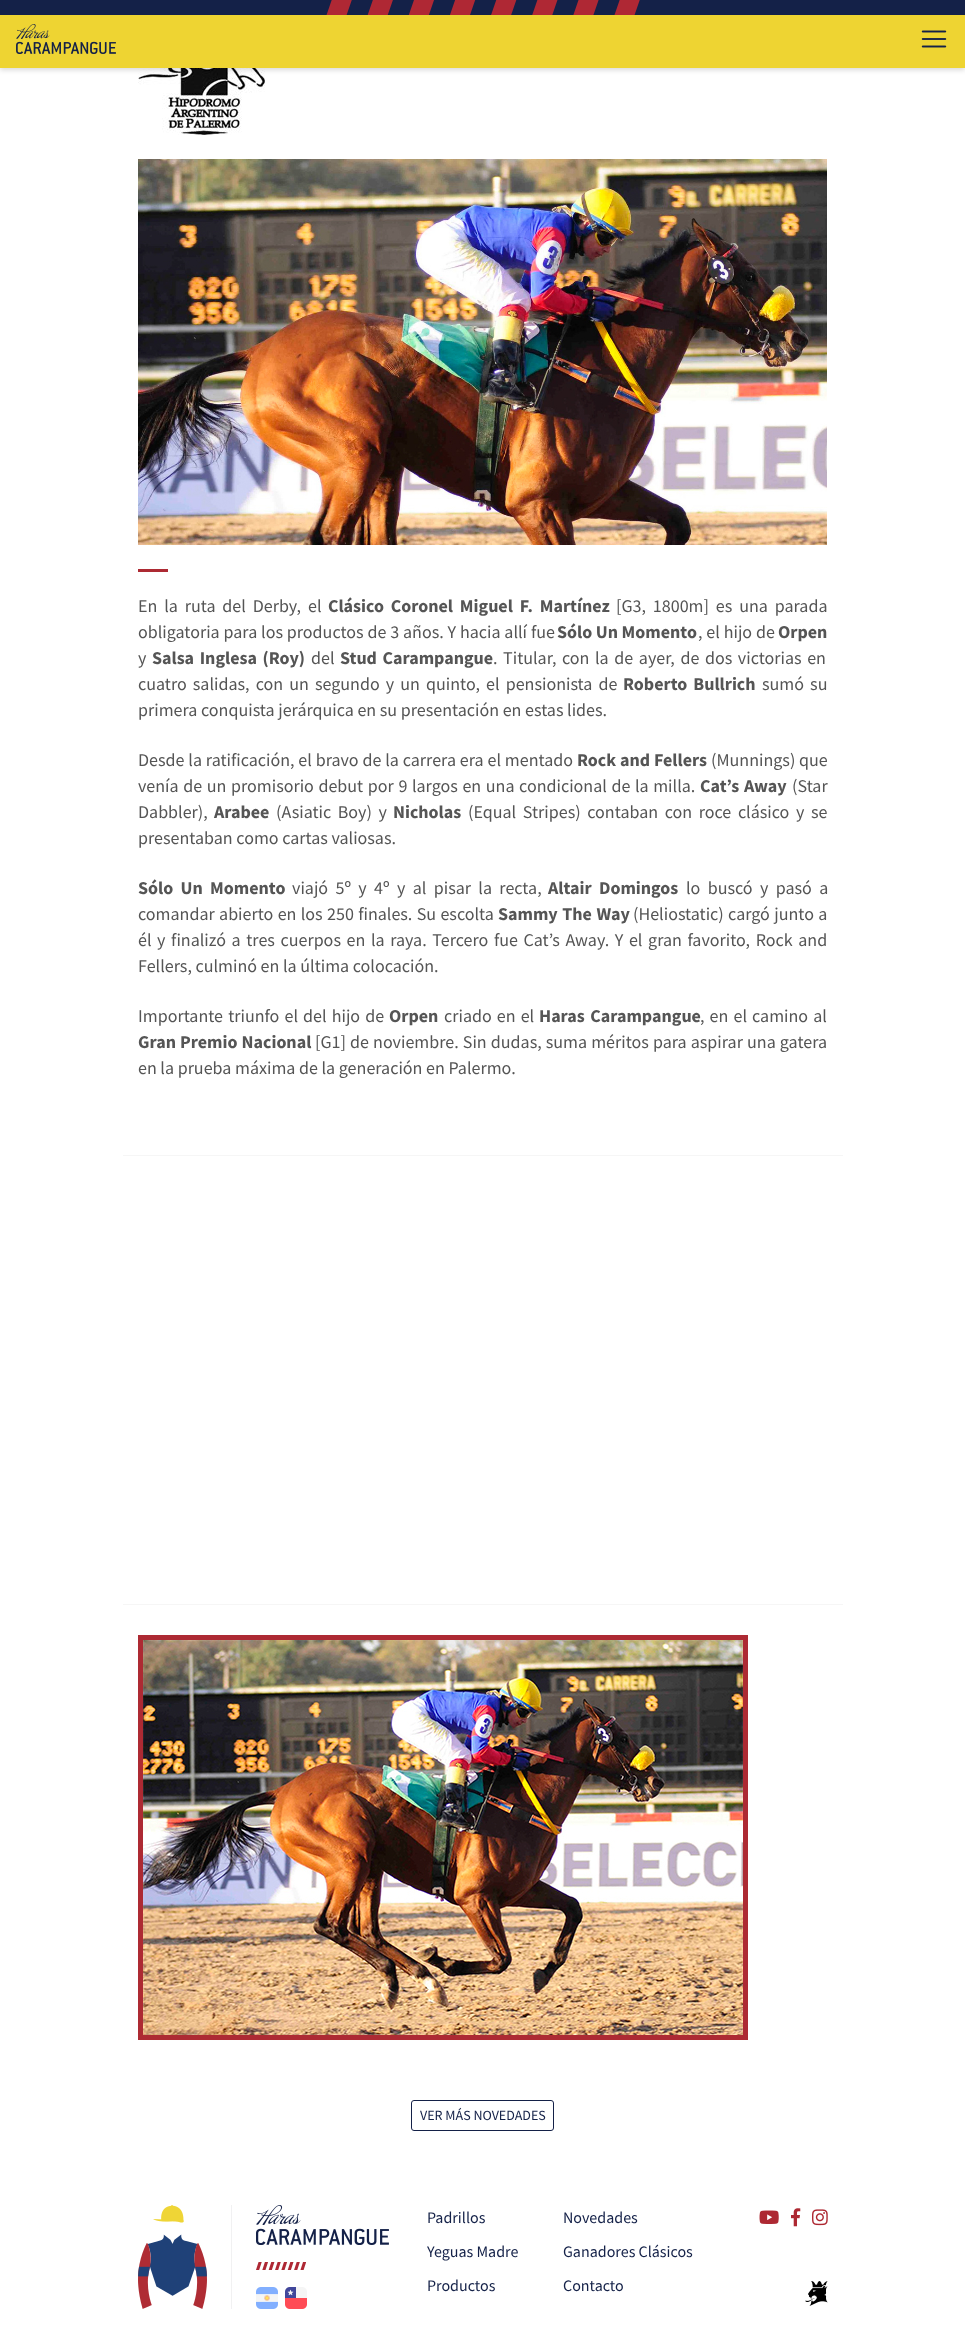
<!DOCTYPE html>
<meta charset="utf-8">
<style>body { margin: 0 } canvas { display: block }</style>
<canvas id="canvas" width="965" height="2333"></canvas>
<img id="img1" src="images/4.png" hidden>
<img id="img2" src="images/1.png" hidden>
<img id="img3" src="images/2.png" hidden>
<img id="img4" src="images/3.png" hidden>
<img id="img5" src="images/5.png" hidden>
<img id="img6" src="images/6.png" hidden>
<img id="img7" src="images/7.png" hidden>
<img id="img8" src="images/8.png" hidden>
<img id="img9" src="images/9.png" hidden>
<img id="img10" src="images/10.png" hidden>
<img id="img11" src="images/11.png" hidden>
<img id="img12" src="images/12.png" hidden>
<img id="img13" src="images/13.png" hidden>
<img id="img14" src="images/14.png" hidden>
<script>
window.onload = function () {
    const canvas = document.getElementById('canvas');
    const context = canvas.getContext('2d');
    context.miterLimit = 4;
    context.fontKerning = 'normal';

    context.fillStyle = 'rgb(255, 255, 255)';
    context.fillRect(0, 0, 965, 2333);
    context.drawImage(document.getElementById('img1'), 138, 68, 127, 67);
    context.fillStyle = 'rgba(0, 0, 0, 0.15)';
    context.filter = 'blur(2.5px)';
    context.beginPath();
    context.rect(0, 2, 965, 68);
    context.fill();
    context.filter = 'none';
    context.fillStyle = 'rgb(238, 212, 50)';
    context.fillRect(0, 15, 965, 53);
    context.fillStyle = 'rgb(20, 33, 72)';
    context.fillRect(0, 0, 965, 15);
    context.drawImage(document.getElementById('img2'), 326, 0, 314, 15);
    context.drawImage(document.getElementById('img3'), 16, 24, 100, 30);
    context.drawImage(document.getElementById('img4'), 921, 30, 26, 18);
    context.drawImage(document.getElementById('img5'), 138, 159, 689, 386);
    context.fillStyle = 'rgb(173, 42, 51)';
    context.fillRect(138, 569, 30, 3);
    context.fillStyle = 'rgb(246, 246, 246)';
    context.fillRect(123, 1155, 720, 1);
    context.fillRect(123, 1604, 720, 1);
    context.strokeStyle = 'rgb(173, 42, 51)';
    context.lineWidth = 5;
    context.strokeRect(140.5, 1637.5, 605, 400);
    context.drawImage(document.getElementById('img6'), 143, 1640, 600, 395);
    context.beginPath();
    context.roundRect(411.5, 2100.5, 142, 30, 2.5);
    context.strokeStyle = 'rgb(20, 33, 72)';
    context.lineWidth = 1;
    context.stroke();
    context.fillStyle = 'rgb(241, 241, 242)';
    context.fillRect(231, 2205, 1, 104);
    context.drawImage(document.getElementById('img7'), 138, 2205, 69, 104);
    context.drawImage(document.getElementById('img8'), 256, 2205, 133, 40);
    context.drawImage(document.getElementById('img9'), 256, 2262, 50, 8);
    context.drawImage(document.getElementById('img10'), 256, 2287, 51, 22);
    context.drawImage(document.getElementById('img11'), 759, 2210, 20, 14);
    context.drawImage(document.getElementById('img12'), 791, 2208, 10, 19);
    context.drawImage(document.getElementById('img13'), 812, 2209, 16, 17);
    context.drawImage(document.getElementById('img14'), 805, 2281, 23, 25);
    context.wordSpacing = '3.25px';
    context.font = '18px Source Sans Pro';
    context.fillStyle = 'rgb(85, 85, 85)';
    context.fillText('En la ruta del Derby, el', 138, 612);
    context.font = 'bold 18px Source Sans Pro';
    context.fillText('Clásico Coronel Miguel F. Martínez', 328, 612);
    context.font = '18px Source Sans Pro';
    context.fillText('[G3, 1800m] es una parada', 616, 612);
    context.wordSpacing = '0.25px';
    context.fillText('obligatoria para los productos de 3 años. Y hacia allí fue', 138, 638);
    context.wordSpacing = '0px';
    context.font = 'bold 18px Source Sans Pro';
    context.fillText('Sólo Un Momento', 557, 638);
    context.wordSpacing = '0.25px';
    context.font = '18px Source Sans Pro';
    context.fillText(', el hijo de', 698, 638);
    context.wordSpacing = '0px';
    context.font = 'bold 18px Source Sans Pro';
    context.fillText('Orpen', 778, 638);
    context.font = '18px Source Sans Pro';
    context.fillText('y', 138, 664);
    context.wordSpacing = '2px';
    context.font = 'bold 18px Source Sans Pro';
    context.fillText('Salsa Inglesa (Roy)', 152, 664);
    context.wordSpacing = '0px';
    context.font = '18px Source Sans Pro';
    context.fillText('del', 311, 664);
    context.wordSpacing = '2px';
    context.font = 'bold 18px Source Sans Pro';
    context.fillText('Stud Carampangue', 340, 664);
    context.font = '18px Source Sans Pro';
    context.fillText('. Titular, con la de ayer, de dos victorias en', 493, 664);
    context.wordSpacing = '2.5px';
    context.fillText('cuatro salidas, con un segundo y un quinto, el pensionista de', 138, 690);
    context.font = 'bold 18px Source Sans Pro';
    context.fillText('Roberto Bullrich', 623, 690);
    context.font = '18px Source Sans Pro';
    context.fillText('sumó su', 762, 690);
    context.wordSpacing = '0px';
    context.fillText('primera conquista jerárquica en su presentación en estas lides.', 138, 716);
    context.wordSpacing = '0.25px';
    context.fillText('Desde la ratificación, el bravo de la carrera era el mentado', 138, 766);
    context.font = 'bold 18px Source Sans Pro';
    context.fillText('Rock and Fellers', 577, 766);
    context.wordSpacing = '0px';
    context.font = '18px Source Sans Pro';
    context.fillText('(Munnings) que', 711, 766);
    context.wordSpacing = '1px';
    context.fillText('venía de un promisorio debut por 9 largos en una condicional de la milla.', 138, 792);
    context.font = 'bold 18px Source Sans Pro';
    context.fillText('Cat’s Away', 700, 792);
    context.wordSpacing = '0px';
    context.font = '18px Source Sans Pro';
    context.fillText('(Star', 792, 792);
    context.fillText('Dabbler),', 138, 818);
    context.font = 'bold 18px Source Sans Pro';
    context.fillText('Arabee', 214, 818);
    context.wordSpacing = '3px';
    context.font = '18px Source Sans Pro';
    context.fillText('(Asiatic Boy) y', 276, 818);
    context.wordSpacing = '0px';
    context.font = 'bold 18px Source Sans Pro';
    context.fillText('Nicholas', 393, 818);
    context.wordSpacing = '3px';
    context.font = '18px Source Sans Pro';
    context.fillText('(Equal Stripes) contaban con roce clásico y se', 468, 818);
    context.wordSpacing = '0px';
    context.fillText('presentaban como cartas valiosas.', 138, 844);
    context.wordSpacing = '3.75px';
    context.font = 'bold 18px Source Sans Pro';
    context.fillText('Sólo Un Momento', 138, 894);
    context.font = '18px Source Sans Pro';
    context.fillText('viajó 5º y 4º y al pisar la recta,', 292, 894);
    context.font = 'bold 18px Source Sans Pro';
    context.fillText('Altair Domingos', 548, 894);
    context.font = '18px Source Sans Pro';
    context.fillText('lo buscó y pasó a', 686, 894);
    context.wordSpacing = '0.75px';
    context.fillText('comandar abierto en los 250 finales. Su escolta', 138, 920);
    context.wordSpacing = '1px';
    context.font = 'bold 18px Source Sans Pro';
    context.fillText('Sammy The Way', 498, 920);
    context.wordSpacing = '0.75px';
    context.font = '18px Source Sans Pro';
    context.fillText('(Heliostatic) cargó junto a', 633, 920);
    context.wordSpacing = '2px';
    context.fillText('él y finalizó a tres cuerpos en la raya. Tercero fue Cat’s Away. Y el gran favorito, Rock and', 138, 946);
    context.wordSpacing = '0px';
    context.fillText('Fellers, culminó en la última colocación.', 138, 972);
    context.wordSpacing = '1.5px';
    context.fillText('Importante triunfo el del hijo de', 138, 1022);
    context.wordSpacing = '0px';
    context.font = 'bold 18px Source Sans Pro';
    context.fillText('Orpen', 389, 1022);
    context.wordSpacing = '1.5px';
    context.font = '18px Source Sans Pro';
    context.fillText('criado en el', 444, 1022);
    context.wordSpacing = '2px';
    context.font = 'bold 18px Source Sans Pro';
    context.fillText('Haras Carampangue', 539, 1022);
    context.wordSpacing = '1.5px';
    context.font = '18px Source Sans Pro';
    context.fillText(', en el camino al', 700, 1022);
    context.wordSpacing = '0.5px';
    context.font = 'bold 18px Source Sans Pro';
    context.fillText('Gran Premio Nacional', 138, 1048);
    context.font = '18px Source Sans Pro';
    context.fillText('[G1] de noviembre. Sin dudas, suma méritos para aspirar una gatera', 315, 1048);
    context.wordSpacing = '0px';
    context.fillText('en la prueba máxima de la generación en Palermo.', 138, 1074);
    context.font = '14px Source Sans Pro';
    context.fillStyle = 'rgb(20, 33, 72)';
    context.fillText('VER MÁS NOVEDADES', 420, 2120);
    context.font = '16px Source Sans Pro';
    context.fillText('Padrillos', 427, 2223);
    context.fillText('Yeguas Madre', 427, 2257);
    context.fillText('Productos', 427, 2291);
    context.fillText('Novedades', 563, 2223);
    context.fillText('Ganadores Clásicos', 563, 2257);
    context.fillText('Contacto', 563, 2291);
};
</script>
